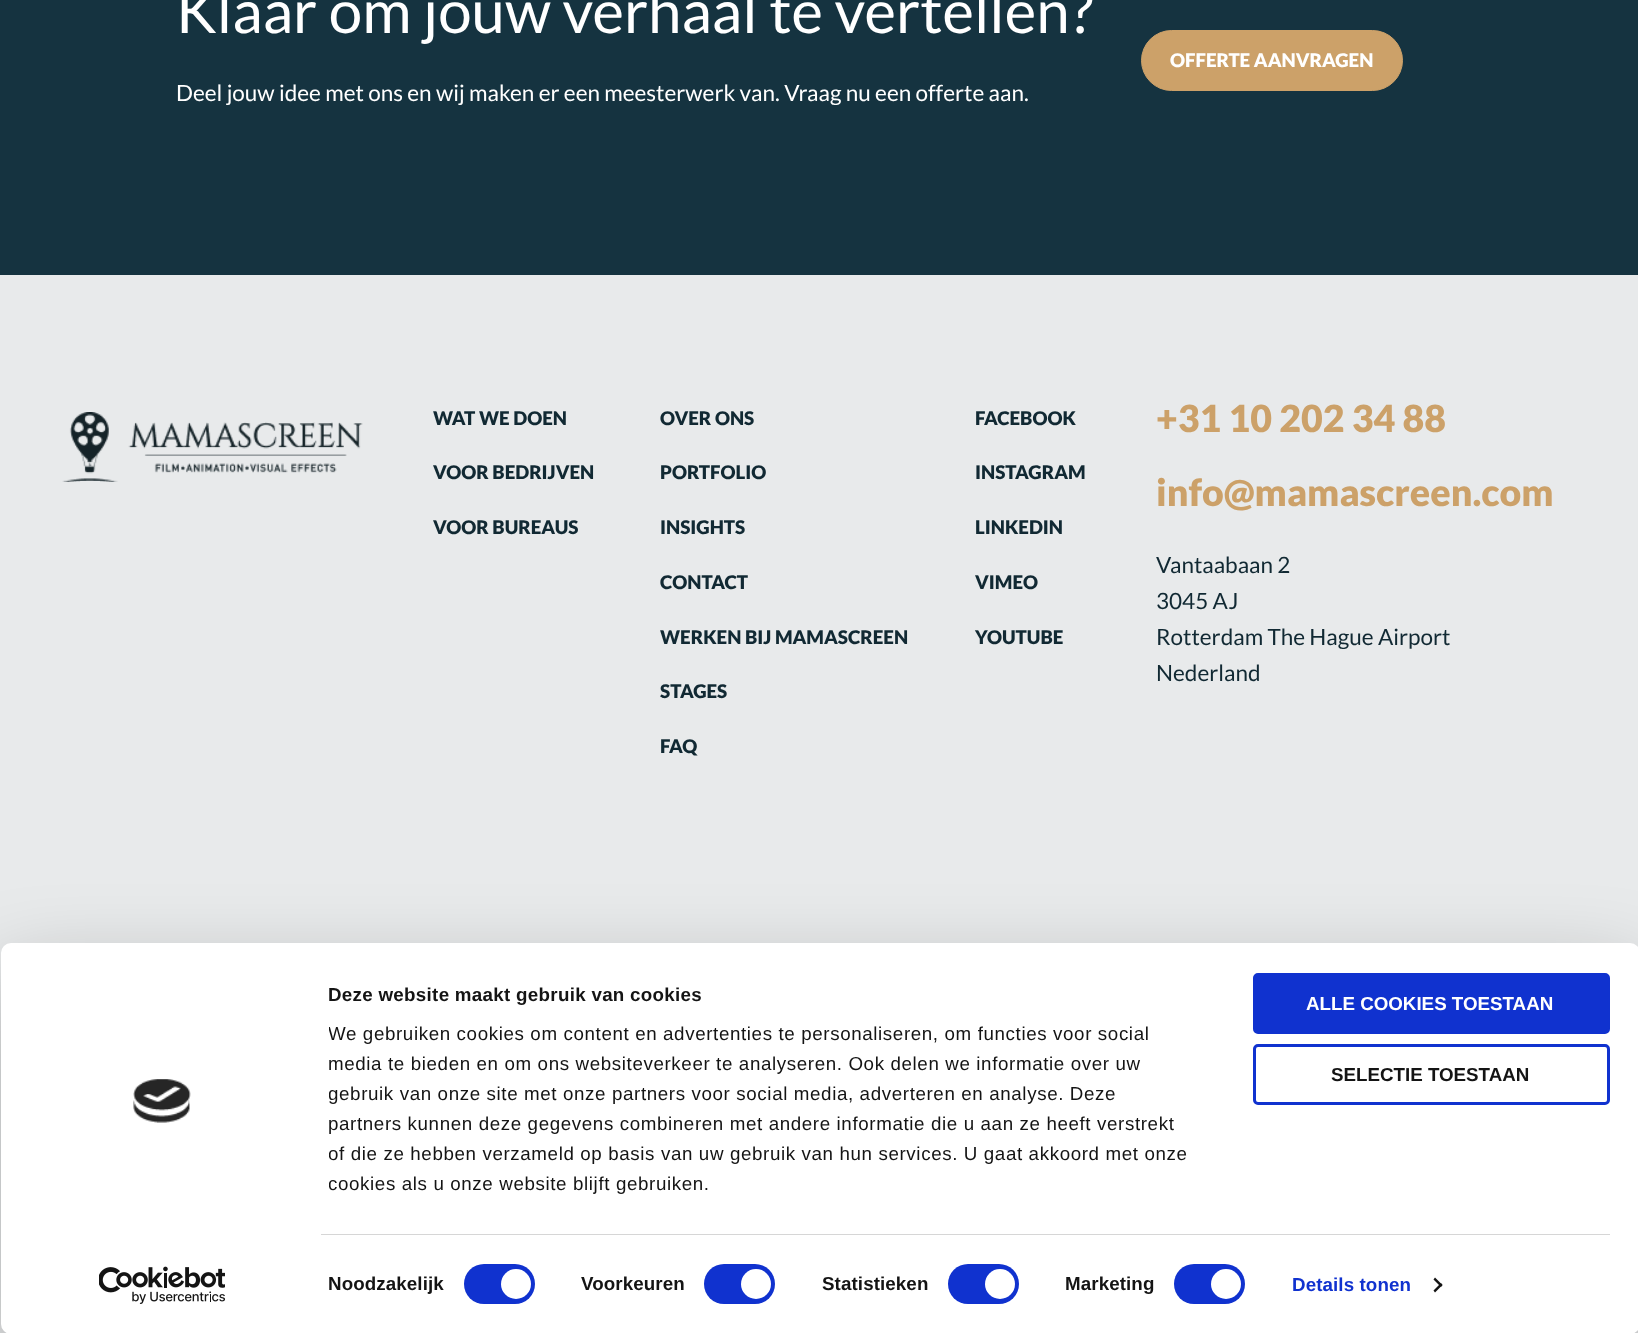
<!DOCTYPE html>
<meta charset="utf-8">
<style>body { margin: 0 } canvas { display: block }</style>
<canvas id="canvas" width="1638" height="1333"></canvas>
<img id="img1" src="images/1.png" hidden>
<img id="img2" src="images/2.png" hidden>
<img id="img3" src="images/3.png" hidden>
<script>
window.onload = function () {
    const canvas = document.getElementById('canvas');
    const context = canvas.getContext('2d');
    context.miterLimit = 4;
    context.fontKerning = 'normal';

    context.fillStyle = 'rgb(232, 234, 235)';
    context.fillRect(0, 0, 1638, 1333);
    context.fillStyle = 'rgb(21, 51, 64)';
    context.fillRect(0, 0, 1638, 275);
    context.fillStyle = 'rgb(204, 161, 105)';
    context.beginPath();
    context.roundRect(1141.5, 30.5, 261, 60, 30);
    context.fill();
    context.strokeStyle = 'rgb(204, 161, 105)';
    context.stroke();
    context.drawImage(document.getElementById('img1'), 62, 412, 301, 70);
    context.fillStyle = 'rgba(0, 0, 0, 0.3)';
    context.filter = 'blur(44px)';
    context.beginPath();
    context.roundRect(1, 980, 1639, 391, 10);
    context.fill();
    context.filter = 'none';
    context.fillStyle = 'rgb(255, 255, 255)';
    context.beginPath();
    context.roundRect(1, 943, 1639, 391, 10);
    context.fill();
    context.fillStyle = 'rgb(214, 214, 214)';
    context.fillRect(321, 1234, 1289, 1);
    context.fillStyle = 'rgb(16, 50, 207)';
    context.beginPath();
    context.roundRect(464, 1264, 71, 40, 20);
    context.fill();
    context.fillStyle = 'rgb(255, 255, 255)';
    context.beginPath();
    context.arc(516, 1284, 15, 0, 2 * Math.PI);
    context.fill();
    context.fillStyle = 'rgb(16, 50, 207)';
    context.beginPath();
    context.roundRect(704, 1264, 71, 40, 20);
    context.fill();
    context.fillStyle = 'rgb(255, 255, 255)';
    context.beginPath();
    context.arc(756, 1284, 15, 0, 2 * Math.PI);
    context.fill();
    context.fillStyle = 'rgb(16, 50, 207)';
    context.beginPath();
    context.roundRect(948, 1264, 71, 40, 20);
    context.fill();
    context.fillStyle = 'rgb(255, 255, 255)';
    context.beginPath();
    context.arc(1000, 1284, 15, 0, 2 * Math.PI);
    context.fill();
    context.fillStyle = 'rgb(16, 50, 207)';
    context.beginPath();
    context.roundRect(1174, 1264, 71, 40, 20);
    context.fill();
    context.fillStyle = 'rgb(255, 255, 255)';
    context.beginPath();
    context.arc(1226, 1284, 15, 0, 2 * Math.PI);
    context.fill();
    context.fillStyle = 'rgb(20, 20, 20)';
    context.beginPath();
    context.moveTo(1435, 1277.5);
    context.lineTo(1442.5, 1285);
    context.lineTo(1441, 1287);
    context.lineTo(1433.5, 1279.5);
    context.closePath();
    context.fill();
    context.beginPath();
    context.moveTo(1441, 1283);
    context.lineTo(1442.5, 1285);
    context.lineTo(1435, 1292.5);
    context.lineTo(1433.5, 1290.5);
    context.closePath();
    context.fill();
    context.fillStyle = 'rgb(16, 50, 207)';
    context.beginPath();
    context.roundRect(1254.5, 974.5, 354, 58, 3.5);
    context.fill();
    context.strokeStyle = 'rgb(16, 50, 207)';
    context.lineWidth = 3;
    context.stroke();
    context.beginPath();
    context.roundRect(1254.5, 1045.5, 354, 58, 3.5);
    context.stroke();
    context.drawImage(document.getElementById('img2'), 133, 1079, 58, 44);
    context.drawImage(document.getElementById('img3'), 99, 1266, 126, 38);
    context.font = '60px Lato';
    context.fillStyle = 'rgb(255, 255, 255)';
    context.fillText('Klaar om jouw verhaal te vertellen?', 176, 33);
    context.font = '22.5px Lato';
    context.fillText('Deel jouw idee met ons en wij maken er een meesterwerk van. Vraag nu een offerte aan.', 176, 101);
    context.font = '900 18.75px Lato';
    context.fillText('OFFERTE AANVRAGEN', 1170, 67);
    context.fillStyle = 'rgb(17, 41, 51)';
    context.fillText('WAT WE DOEN', 433, 425);
    context.fillText('VOOR BEDRIJVEN', 433, 479);
    context.fillText('VOOR BUREAUS', 433, 534);
    context.fillText('OVER ONS', 660, 425);
    context.fillText('PORTFOLIO', 660, 479);
    context.fillText('INSIGHTS', 660, 534);
    context.fillText('CONTACT', 660, 589);
    context.fillText('WERKEN BIJ MAMASCREEN', 660, 644);
    context.fillText('STAGES', 660, 698);
    context.fillText('FAQ', 660, 753);
    context.fillText('FACEBOOK', 975, 425);
    context.fillText('INSTAGRAM', 975, 479);
    context.fillText('LINKEDIN', 975, 534);
    context.fillText('VIMEO', 975, 589);
    context.fillText('YOUTUBE', 975, 644);
    context.font = '900 37.5px Lato';
    context.fillStyle = 'rgb(204, 161, 105)';
    context.fillText('+31 10 202 34 88', 1156, 432);
    context.fillText('info@mamascreen.com', 1156, 506);
    context.font = '22.5px Lato';
    context.fillStyle = 'rgb(17, 41, 51)';
    context.fillText('Vantaabaan 2', 1156, 573);
    context.fillText('3045 AJ', 1156, 609);
    context.fillText('Rotterdam The Hague Airport', 1156, 645);
    context.fillText('Nederland', 1156, 681);
    context.save();
    context.beginPath();
    context.rect(329, 980, 887, 219);
    context.clip();
    context.letterSpacing = '0.3px';
    context.font = 'bold 18.75px Liberation Sans';
    context.fillStyle = 'rgb(20, 20, 20)';
    context.fillText('Deze website maakt gebruik van cookies', 328, 1001);
    context.letterSpacing = '0.62px';
    context.font = '18.75px Liberation Sans';
    context.fillText('We gebruiken cookies om content en advertenties te personaliseren, om functies voor social', 328, 1040);
    context.restore();
    context.letterSpacing = '0.62px';
    context.font = '18.75px Liberation Sans';
    context.fillStyle = 'rgb(20, 20, 20)';
    context.fillText('media te bieden en om ons websiteverkeer te analyseren. Ook delen we informatie over uw', 328, 1070);
    context.save();
    context.beginPath();
    context.rect(329, 980, 887, 219);
    context.clip();
    context.fillText('gebruik van onze site met onze partners voor social media, adverteren en analyse. Deze', 328, 1100);
    context.fillText('partners kunnen deze gegevens combineren met andere informatie die u aan ze heeft verstrekt', 328, 1130);
    context.fillText('of die ze hebben verzameld op basis van uw gebruik van hun services. U gaat akkoord met onze', 328, 1160);
    context.fillText('cookies als u onze website blijft gebruiken.', 328, 1190);
    context.restore();
    context.letterSpacing = '0.1px';
    context.font = 'bold 18.75px Liberation Sans';
    context.fillText('Noodzakelijk', 328, 1290);
    context.fillText('Voorkeuren', 581, 1290);
    context.fillText('Statistieken', 822, 1290);
    context.fillText('Marketing', 1065, 1290);
    context.fillStyle = 'rgb(16, 50, 207)';
    context.fillText('Details tonen', 1292, 1291);
    context.letterSpacing = '0px';
    context.fillStyle = 'rgb(255, 255, 255)';
    context.fillText('ALLE COOKIES TOESTAAN', 1306, 1010);
    context.fillStyle = 'rgb(20, 20, 20)';
    context.fillText('SELECTIE TOESTAAN', 1331, 1081);
};
</script>
